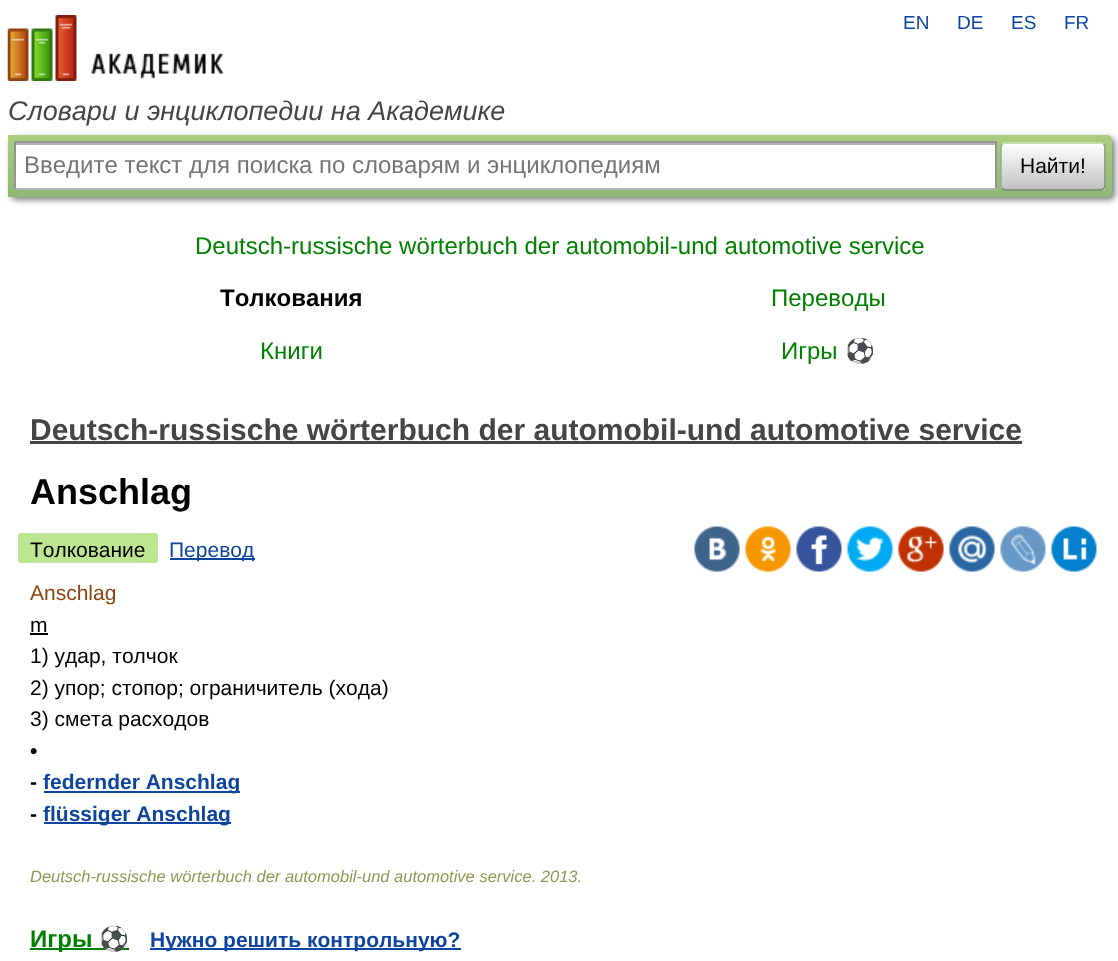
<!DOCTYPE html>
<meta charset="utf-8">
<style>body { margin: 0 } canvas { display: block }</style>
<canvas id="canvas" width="1118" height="961"></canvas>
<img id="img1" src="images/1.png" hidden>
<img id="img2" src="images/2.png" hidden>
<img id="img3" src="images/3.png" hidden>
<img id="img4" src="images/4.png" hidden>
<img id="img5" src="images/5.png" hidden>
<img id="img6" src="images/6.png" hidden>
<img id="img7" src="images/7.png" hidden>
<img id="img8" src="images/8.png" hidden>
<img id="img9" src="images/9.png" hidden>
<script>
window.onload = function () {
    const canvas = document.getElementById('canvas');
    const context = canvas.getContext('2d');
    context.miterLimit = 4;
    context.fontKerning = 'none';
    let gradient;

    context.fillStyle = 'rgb(255, 255, 255)';
    context.fillRect(0, 0, 1118, 961);
    context.drawImage(document.getElementById('img1'), 7, 15, 217, 66);
    context.fillStyle = 'rgba(0, 0, 0, 0.5)';
    context.filter = 'blur(3px)';
    context.beginPath();
    context.roundRect(11, 138, 1104, 62, 5);
    context.fill();
    context.filter = 'none';
    gradient = context.createLinearGradient(560, 135, 560, 197);
    gradient.addColorStop(0, 'rgb(171, 207, 126)');
    gradient.addColorStop(1, 'rgb(142, 184, 116)');
    context.fillStyle = gradient;
    context.beginPath();
    context.roundRect(8, 135, 1104, 62, [0, 5, 5, 0]);
    context.fill();
    context.fillStyle = 'rgb(255, 255, 255)';
    context.fillRect(16, 145, 979, 43);
    context.fillStyle = 'rgb(179, 179, 179)';
    context.fillRect(15, 143, 980, 2);
    context.fillStyle = 'rgb(148, 148, 148)';
    context.fillRect(14, 141, 982, 2);
    context.fillRect(995, 141, 2, 48);
    context.fillStyle = 'rgb(180, 180, 180)';
    context.fillRect(14, 188, 982, 2);
    context.fillStyle = 'rgb(148, 148, 148)';
    context.fillRect(14, 141, 2, 48);
    context.save();
    context.beginPath();
    context.roundRect(1001, 143, 105, 48, 5);
    context.clip();
    gradient = context.createLinearGradient(1053, 144, 1053, 189);
    gradient.addColorStop(0, 'rgb(255, 255, 255)');
    gradient.addColorStop(1, 'rgb(193, 193, 193)');
    context.fillStyle = gradient;
    context.fillRect(1001, 144, 105, 45);
    gradient = context.createLinearGradient(1053, 189, 1053, 234);
    gradient.addColorStop(0, 'rgb(255, 255, 255)');
    gradient.addColorStop(1, 'rgb(193, 193, 193)');
    context.fillStyle = gradient;
    context.fillRect(1001, 189, 105, 2);
    context.restore();
    context.beginPath();
    context.moveTo(1002.5, 144.5);
    context.bezierCurveTo(1003, 143.5, 1004, 143, 1005, 143);
    context.lineTo(1101, 143);
    context.bezierCurveTo(1102, 143, 1103, 143.5, 1103.5, 144.5);
    context.strokeStyle = 'rgb(209, 228, 188)';
    context.lineWidth = 1.5;
    context.stroke();
    context.beginPath();
    context.moveTo(1103.5, 144.5);
    context.bezierCurveTo(1104.5, 145, 1105, 146, 1105, 147);
    context.lineTo(1105, 186);
    context.bezierCurveTo(1105, 187, 1104.5, 188, 1103.5, 188.5);
    context.strokeStyle = 'rgb(122, 142, 105)';
    context.stroke();
    context.beginPath();
    context.moveTo(1103.5, 188.5);
    context.bezierCurveTo(1103, 189.5, 1102, 190, 1101, 190);
    context.lineTo(1005, 190);
    context.bezierCurveTo(1004, 190, 1003, 189.5, 1002.5, 188.5);
    context.strokeStyle = 'rgb(93, 114, 80)';
    context.stroke();
    context.beginPath();
    context.moveTo(1002.5, 188.5);
    context.bezierCurveTo(1001.5, 188, 1001, 187, 1001, 186);
    context.lineTo(1001, 147);
    context.bezierCurveTo(1001, 146, 1001.5, 145, 1002.5, 144.5);
    context.strokeStyle = 'rgb(154, 174, 137)';
    context.stroke();
    context.fillStyle = 'rgb(69, 69, 69)';
    context.fillRect(30, 441, 992, 3);
    context.fillStyle = 'rgb(189, 230, 147)';
    context.beginPath();
    context.roundRect(18, 533, 140, 30, 3);
    context.fill();
    context.fillStyle = 'rgb(13, 68, 160)';
    context.fillRect(170, 558, 85, 2);
    context.drawImage(document.getElementById('img2'), 694, 526, 46, 46);
    context.drawImage(document.getElementById('img3'), 745, 526, 46, 46);
    context.drawImage(document.getElementById('img4'), 796, 526, 46, 46);
    context.drawImage(document.getElementById('img5'), 847, 526, 46, 46);
    context.drawImage(document.getElementById('img6'), 898, 526, 46, 46);
    context.drawImage(document.getElementById('img7'), 949, 526, 46, 46);
    context.drawImage(document.getElementById('img8'), 1000, 526, 46, 46);
    context.drawImage(document.getElementById('img9'), 1051, 526, 46, 46);
    context.fillStyle = 'rgb(0, 0, 0)';
    context.fillRect(30, 633, 18, 2);
    context.fillStyle = 'rgb(13, 68, 160)';
    context.fillRect(44, 791, 196, 2);
    context.fillRect(44, 822, 187, 2);
    context.fillStyle = 'rgb(0, 128, 0)';
    context.fillRect(30, 948, 99, 2);
    context.fillStyle = 'rgb(13, 68, 160)';
    context.fillRect(150, 948, 311, 2);
    context.font = '19px Liberation Sans';
    context.fillText('EN', 903, 29);
    context.fillText('DE', 957, 29);
    context.fillText('ES', 1011, 29);
    context.fillText('FR', 1064, 29);
    context.font = 'italic 27px Liberation Sans';
    context.fillStyle = 'rgb(69, 69, 69)';
    context.fillText('Словари и энциклопедии на Академике', 8, 120);
    context.font = '24px Liberation Sans';
    context.fillStyle = 'rgb(117, 117, 117)';
    context.fillText('Введите текст для поиска по словарям и энциклопедиям', 24, 173);
    context.font = '21px Liberation Sans';
    context.fillStyle = 'rgb(0, 0, 0)';
    context.fillText('Найти!', 1020, 173);
    context.font = '24px Liberation Sans';
    context.fillStyle = 'rgb(0, 128, 0)';
    context.fillText('Deutsch-russische wörterbuch der automobil-und automotive service', 195, 254);
    context.font = 'bold 24px Liberation Sans';
    context.fillStyle = 'rgb(0, 0, 0)';
    context.fillText('Толкования', 220, 306);
    context.font = '24px Liberation Sans';
    context.fillStyle = 'rgb(0, 128, 0)';
    context.fillText('Переводы', 771, 306);
    context.fillText('Книги', 260, 359);
    context.fillText('Игры', 781, 359);
    context.font = '24px Noto Color Emoji';
    context.fillText('⚽', 845, 359);
    context.font = 'bold 30px Liberation Sans';
    context.fillStyle = 'rgb(69, 69, 69)';
    context.fillText('Deutsch-russische wörterbuch der automobil-und automotive service', 30, 440);
    context.font = 'bold 36px Liberation Sans';
    context.fillStyle = 'rgb(0, 0, 0)';
    context.fillText('Anschlag', 30, 504);
    context.font = '21px Liberation Sans';
    context.fillText('Толкование', 30, 557);
    context.fillStyle = 'rgb(13, 68, 160)';
    context.fillText('Перевод', 169, 557);
    context.fillStyle = 'rgb(139, 69, 19)';
    context.fillText('Anschlag', 30, 600);
    context.fillStyle = 'rgb(0, 0, 0)';
    context.fillText('m', 30, 632);
    context.fillText('1) удар, толчок', 30, 663);
    context.fillText('2) упор; стопор; ограничитель (хода)', 30, 695);
    context.fillText('3) смета расходов', 30, 726);
    context.font = 'bold 21px Liberation Sans';
    context.fillText('•', 30, 758);
    context.fillText('-', 30, 789);
    context.fillStyle = 'rgb(13, 68, 160)';
    context.fillText('federnder Anschlag', 43, 789);
    context.fillStyle = 'rgb(0, 0, 0)';
    context.fillText('-', 30, 821);
    context.fillStyle = 'rgb(13, 68, 160)';
    context.fillText('flüssiger Anschlag', 43, 821);
    context.font = 'italic 16.5px Liberation Sans';
    context.fillStyle = 'rgb(147, 151, 86)';
    context.fillText('Deutsch-russische wörterbuch der automobil-und automotive service. 2013.', 30, 882);
    context.font = 'bold 24px Liberation Sans';
    context.fillStyle = 'rgb(0, 128, 0)';
    context.fillText('Игры', 30, 947);
    context.font = 'bold 24px Noto Color Emoji';
    context.fillText('⚽', 99, 947);
    context.font = 'bold 21px Liberation Sans';
    context.fillStyle = 'rgb(13, 68, 160)';
    context.fillText('Нужно решить контрольную?', 150, 947);
};
</script>
